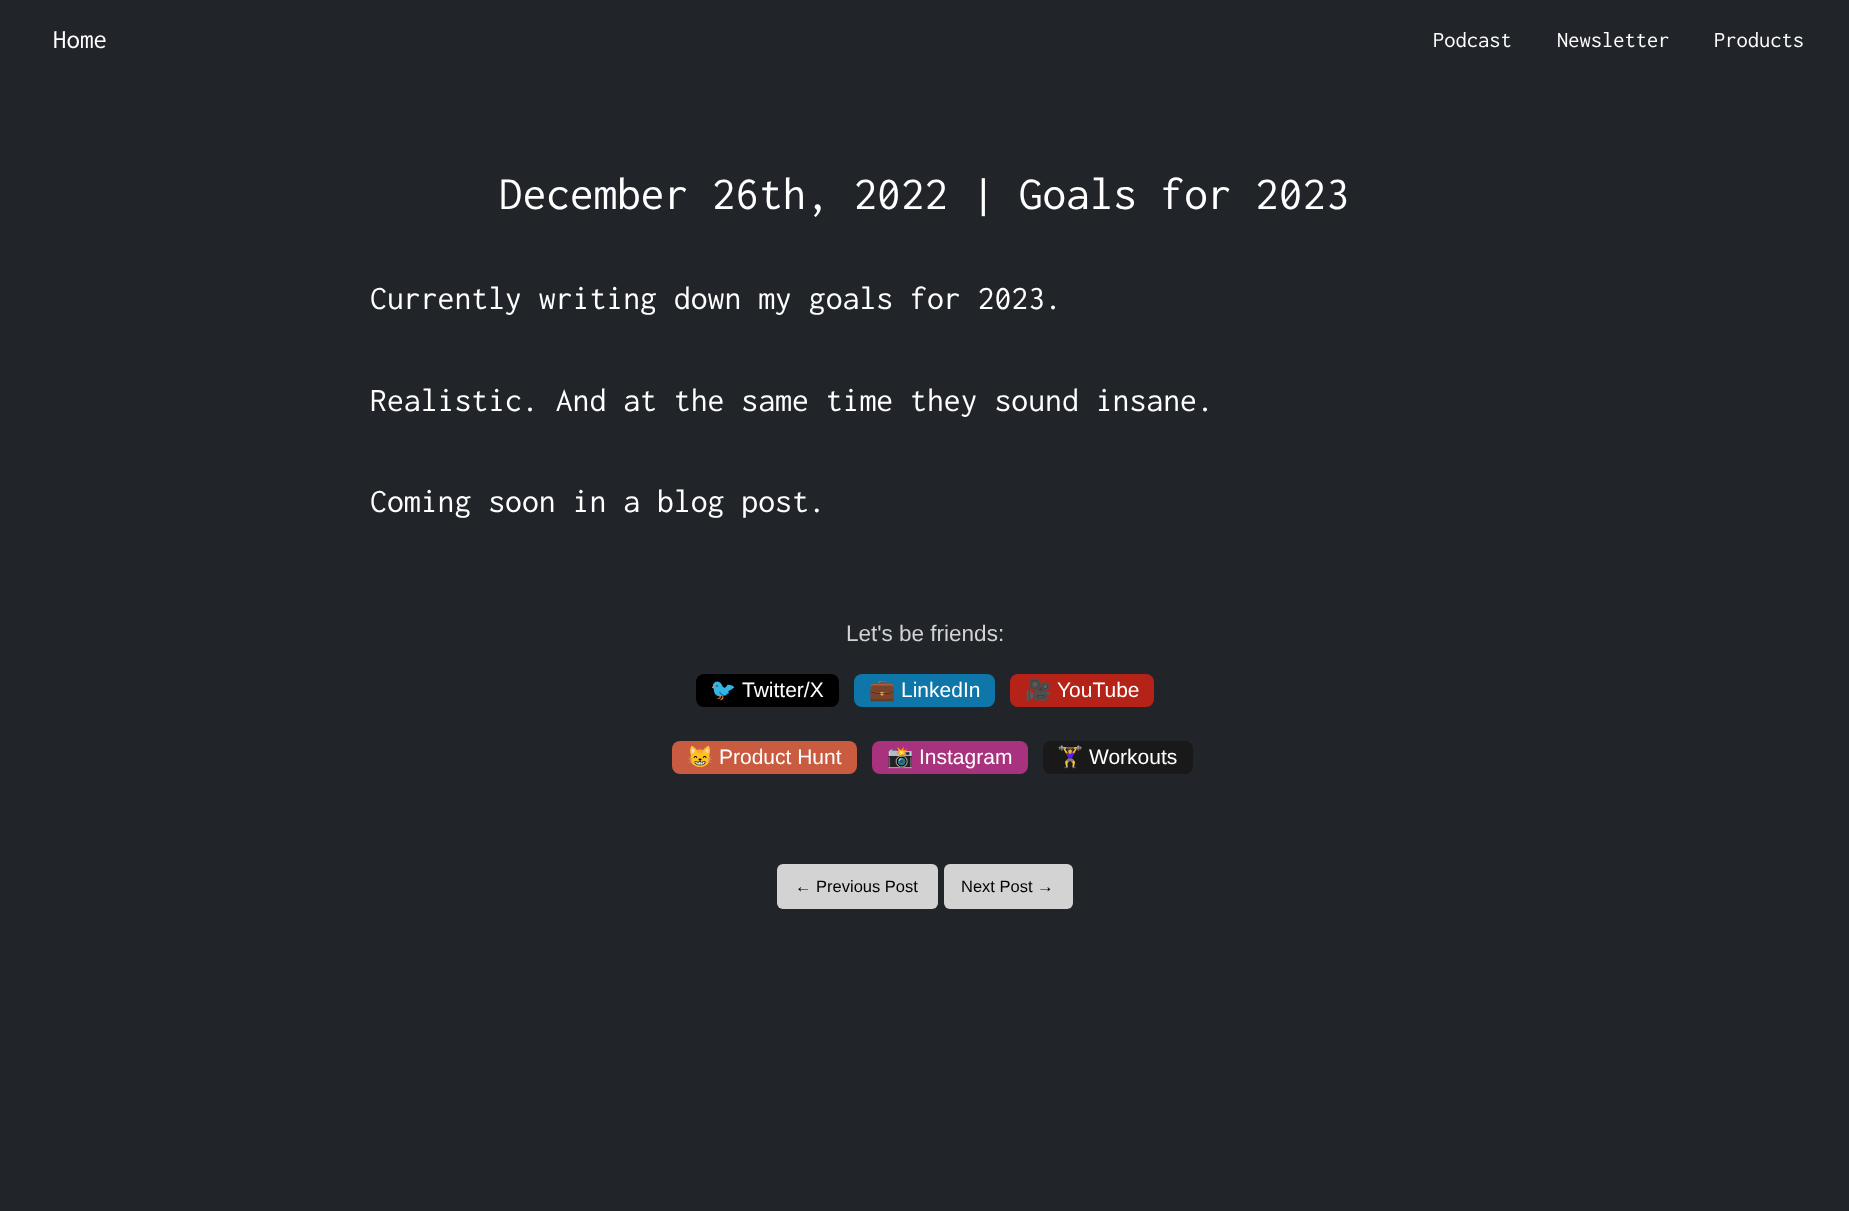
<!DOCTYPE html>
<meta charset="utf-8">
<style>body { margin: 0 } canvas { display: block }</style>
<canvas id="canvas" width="1849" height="1211"></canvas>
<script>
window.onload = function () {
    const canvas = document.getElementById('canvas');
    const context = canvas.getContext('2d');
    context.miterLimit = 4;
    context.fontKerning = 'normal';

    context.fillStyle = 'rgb(33, 37, 41)';
    context.fillRect(0, 0, 1849, 1211);
    context.fillStyle = 'rgb(0, 0, 0)';
    context.beginPath();
    context.roundRect(696, 674, 143, 33, 8);
    context.fill();
    context.fillStyle = 'rgb(14, 118, 168)';
    context.beginPath();
    context.roundRect(854, 674, 141, 33, 8);
    context.fill();
    context.fillStyle = 'rgb(181, 34, 24)';
    context.beginPath();
    context.roundRect(1010, 674, 144, 33, 8);
    context.fill();
    context.fillStyle = 'rgb(201, 92, 64)';
    context.beginPath();
    context.roundRect(672, 741, 185, 33, 8);
    context.fill();
    context.fillStyle = 'rgb(168, 50, 125)';
    context.beginPath();
    context.roundRect(872, 741, 156, 33, 8);
    context.fill();
    context.fillStyle = 'rgb(25, 25, 25)';
    context.beginPath();
    context.roundRect(1043, 741, 150, 33, 8);
    context.fill();
    context.fillStyle = 'rgb(211, 211, 211)';
    context.beginPath();
    context.roundRect(777, 864, 161, 45, 6);
    context.fill();
    context.beginPath();
    context.roundRect(944, 864, 129, 45, 6);
    context.fill();
    context.font = '27px Inconsolata';
    context.fillStyle = 'rgb(255, 255, 255)';
    context.fillText('Home', 53, 48);
    context.font = '22.5px Inconsolata';
    context.fillText('Podcast', 1433, 47);
    context.fillText('Newsletter', 1557, 47);
    context.fillText('Products', 1714, 47);
    context.font = '47.25px Inconsolata';
    context.fillText('December 26th, 2022 | Goals for 2023', 499, 209);
    context.font = '33.75px Inconsolata';
    context.fillText('Currently writing down my goals for 2023.', 370, 309);
    context.fillText('Realistic. And at the same time they sound insane.', 370, 411);
    context.fillText('Coming soon in a blog post.', 370, 512);
    context.font = '22.5px Liberation Sans';
    context.fillStyle = 'rgb(211, 211, 211)';
    context.fillText('Let\'s be friends:', 846, 641);
    context.font = '21px Noto Color Emoji';
    context.fillStyle = 'rgb(255, 255, 255)';
    context.fillText('🐦', 710, 697);
    context.font = '21px Liberation Sans';
    context.fillText('Twitter/X', 742, 697);
    context.font = '21px Noto Color Emoji';
    context.fillText('💼', 869, 697);
    context.font = '21px Liberation Sans';
    context.fillText('LinkedIn', 901, 697);
    context.font = '21px Noto Color Emoji';
    context.fillText('🎥', 1025, 697);
    context.font = '21px Liberation Sans';
    context.fillText('YouTube', 1057, 697);
    context.font = '21px Noto Color Emoji';
    context.fillText('😸', 687, 764);
    context.font = '21px Liberation Sans';
    context.fillText('Product Hunt', 719, 764);
    context.font = '21px Noto Color Emoji';
    context.fillText('📸', 887, 764);
    context.font = '21px Liberation Sans';
    context.fillText('Instagram', 919, 764);
    context.font = '21px Noto Color Emoji';
    context.fillText('🏋️‍♀️', 1057, 764);
    context.font = '21px Liberation Sans';
    context.fillText('Workouts', 1089, 764);
    context.font = '16.5px Liberation Sans';
    context.fillStyle = 'rgb(0, 0, 0)';
    context.fillText('← Previous Post', 795, 892);
    context.fillText('Next Post →', 961, 892);
};
</script>
